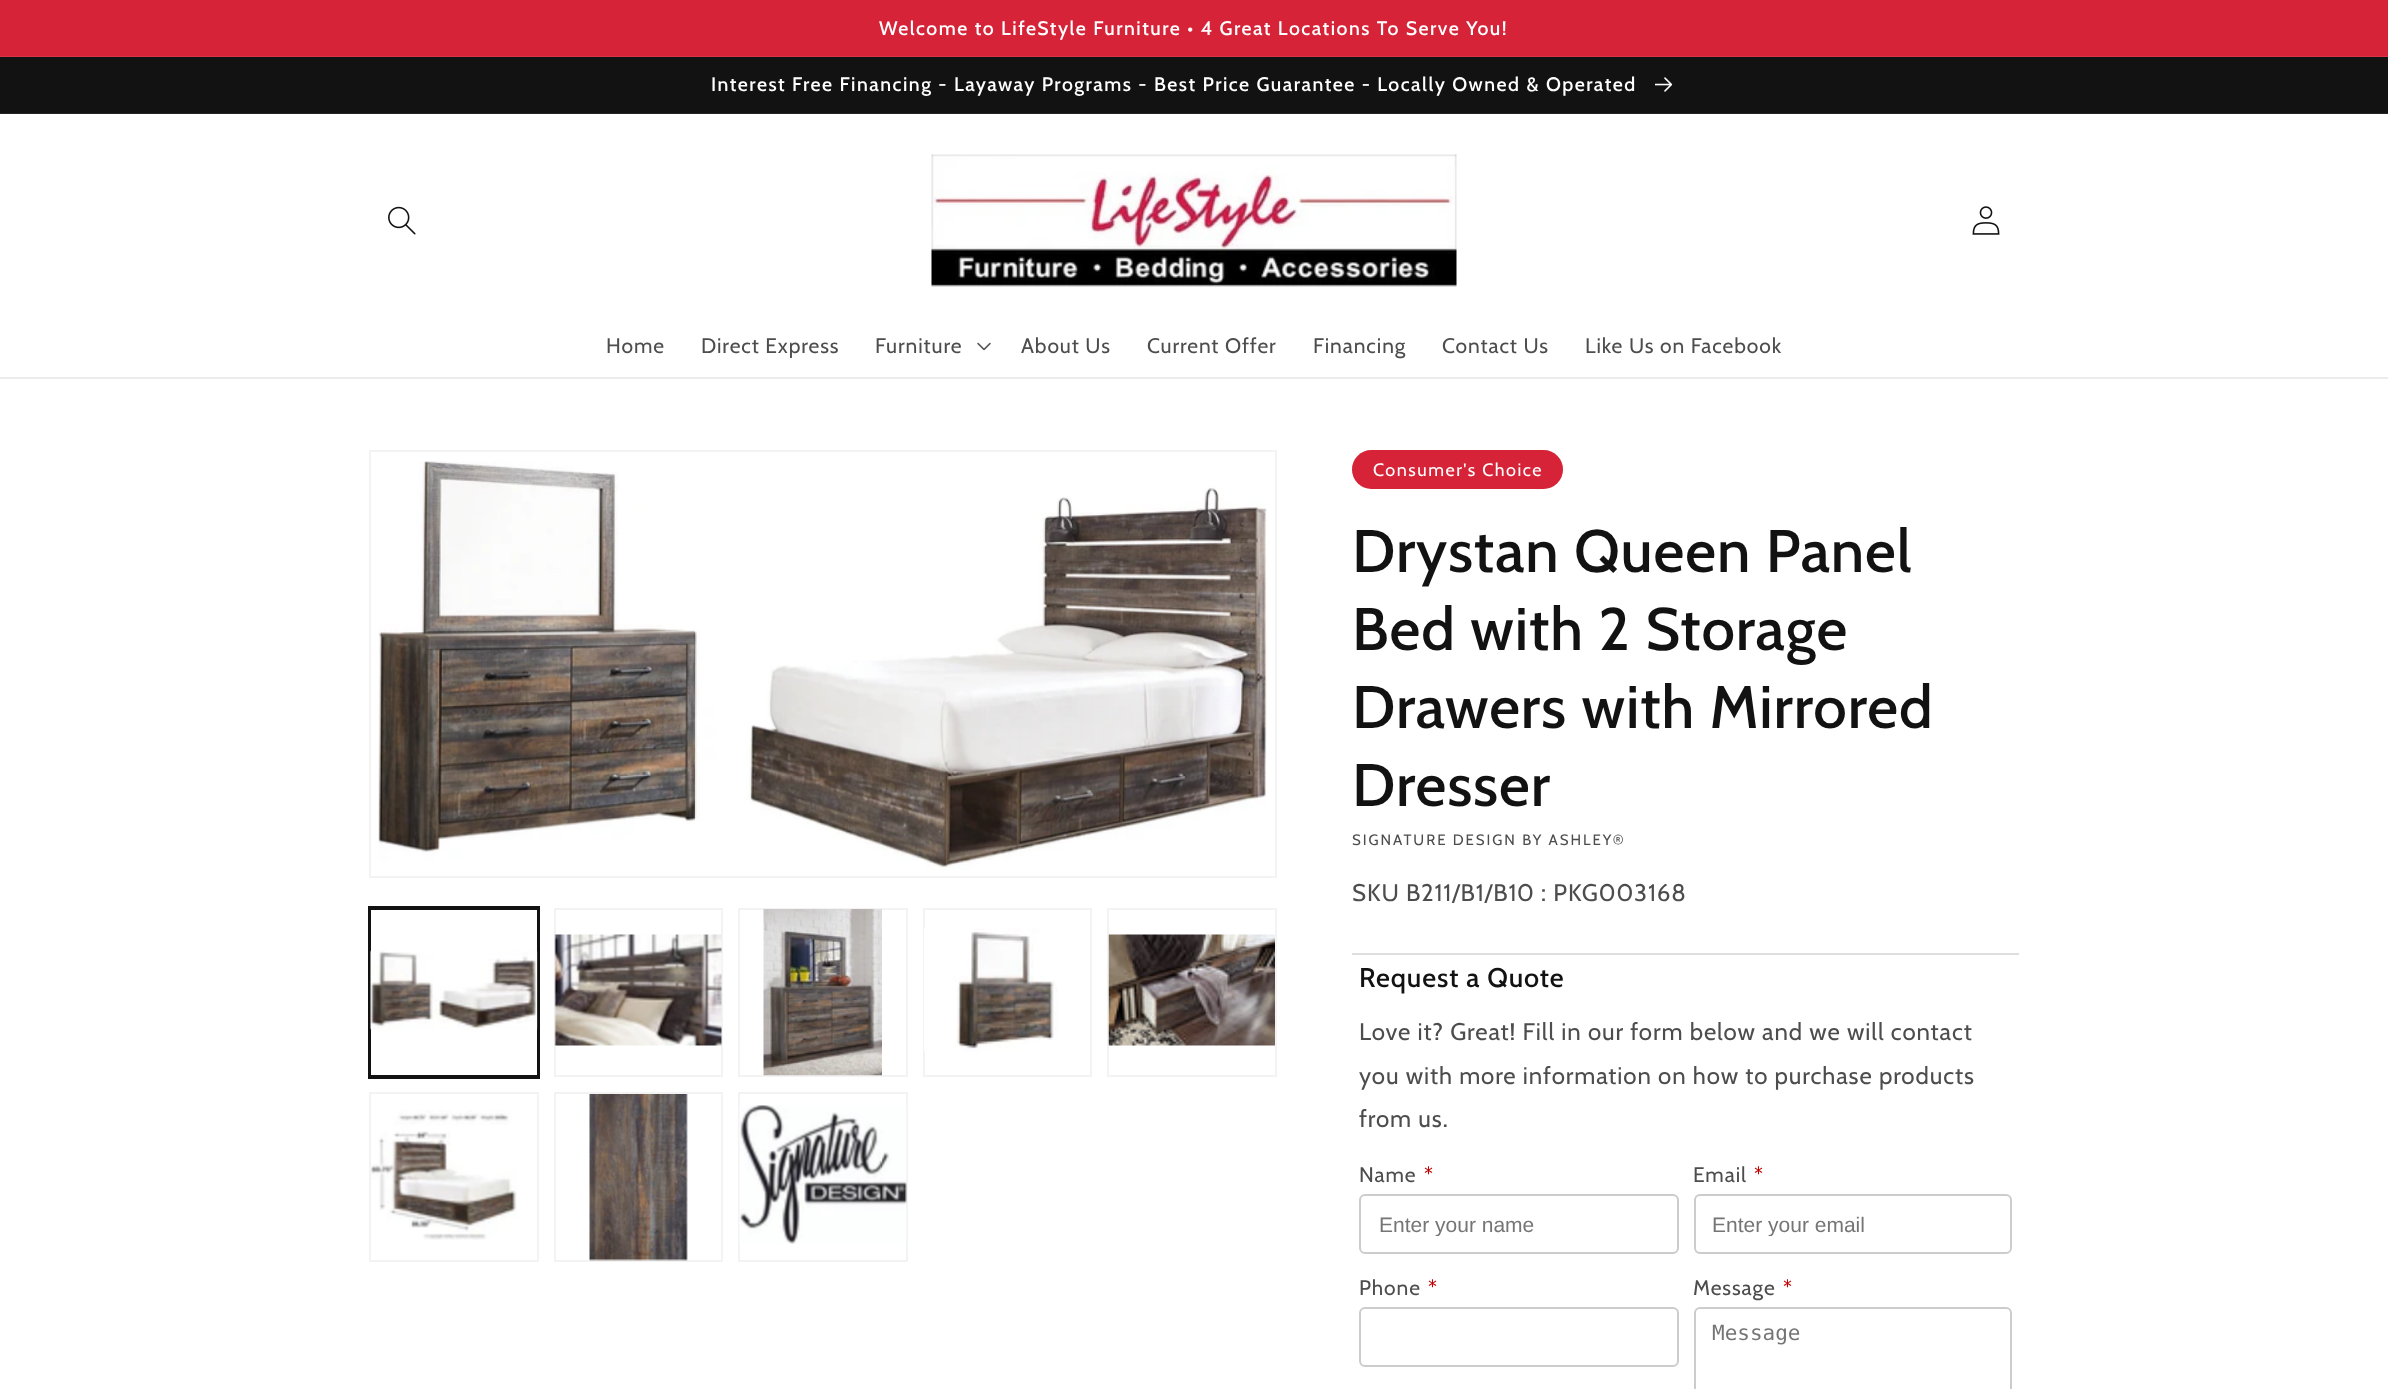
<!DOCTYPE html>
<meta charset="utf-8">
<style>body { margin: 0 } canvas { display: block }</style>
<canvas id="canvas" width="2388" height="1389"></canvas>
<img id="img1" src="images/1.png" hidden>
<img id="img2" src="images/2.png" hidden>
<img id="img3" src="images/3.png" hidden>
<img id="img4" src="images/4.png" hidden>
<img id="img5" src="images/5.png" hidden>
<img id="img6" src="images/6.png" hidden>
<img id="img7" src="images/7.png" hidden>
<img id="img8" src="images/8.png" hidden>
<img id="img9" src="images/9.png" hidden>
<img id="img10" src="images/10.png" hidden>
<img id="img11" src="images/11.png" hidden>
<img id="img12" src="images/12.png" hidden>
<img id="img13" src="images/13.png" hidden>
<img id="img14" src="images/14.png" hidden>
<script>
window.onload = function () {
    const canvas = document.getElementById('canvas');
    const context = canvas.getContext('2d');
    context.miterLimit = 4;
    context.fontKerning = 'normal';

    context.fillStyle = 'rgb(255, 255, 255)';
    context.fillRect(0, 0, 2388, 1389);
    context.fillStyle = 'rgb(214, 35, 56)';
    context.fillRect(0, 0, 2388, 56);
    context.fillStyle = 'rgb(217, 53, 72)';
    context.fillRect(0, 56, 2388, 1);
    context.fillStyle = 'rgb(18, 18, 18)';
    context.fillRect(0, 57, 2388, 56);
    context.fillStyle = 'rgb(37, 37, 37)';
    context.fillRect(0, 113, 2388, 1);
    context.drawImage(document.getElementById('img1'), 1655, 77, 18, 15);
    context.fillStyle = 'rgb(236, 236, 236)';
    context.fillRect(0, 377, 2388, 2);
    context.drawImage(document.getElementById('img2'), 388, 206, 28, 29);
    context.drawImage(document.getElementById('img3'), 931, 154, 526, 133);
    context.drawImage(document.getElementById('img4'), 1972, 206, 28, 29);
    context.drawImage(document.getElementById('img5'), 977, 342, 14, 9);
    context.strokeStyle = 'rgb(243, 243, 243)';
    context.lineWidth = 2;
    context.strokeRect(370, 451, 906, 426);
    context.drawImage(document.getElementById('img6'), 378, 461, 889, 409);
    context.strokeStyle = 'rgb(18, 18, 18)';
    context.strokeRect(369, 907, 170, 171);
    context.strokeRect(370, 909, 168, 167);
    context.drawImage(document.getElementById('img7'), 370, 950, 168, 80);
    context.strokeStyle = 'rgb(243, 243, 243)';
    context.strokeRect(555, 909, 167, 167);
    context.drawImage(document.getElementById('img8'), 554, 934, 168, 112);
    context.strokeRect(739, 909, 168, 167);
    context.drawImage(document.getElementById('img9'), 763, 909, 119, 167);
    context.strokeRect(924, 909, 167, 167);
    context.drawImage(document.getElementById('img10'), 924, 928, 134, 124);
    context.strokeRect(1108, 909, 168, 167);
    context.drawImage(document.getElementById('img11'), 1108, 934, 167, 112);
    context.strokeRect(370, 1093, 168, 168);
    context.drawImage(document.getElementById('img12'), 371, 1110, 146, 130);
    context.strokeRect(555, 1093, 167, 168);
    context.drawImage(document.getElementById('img13'), 589, 1094, 99, 167);
    context.strokeRect(739, 1093, 168, 168);
    context.drawImage(document.getElementById('img14'), 739, 1105, 168, 139);
    context.fillStyle = 'rgb(214, 35, 56)';
    context.beginPath();
    context.roundRect(1352, 450, 211, 39, 19.5);
    context.fill();
    context.beginPath();
    context.roundRect(1353, 451, 209, 37, 18.5);
    context.strokeStyle = 'rgba(214, 35, 56, 0.1)';
    context.stroke();
    context.fillStyle = 'rgb(222, 222, 222)';
    context.fillRect(1352, 953, 667, 2);
    context.beginPath();
    context.roundRect(1360, 1195, 318, 58, 5);
    context.strokeStyle = 'rgb(204, 204, 204)';
    context.stroke();
    context.beginPath();
    context.roundRect(1695, 1195, 316, 58, 5);
    context.stroke();
    context.beginPath();
    context.roundRect(1360, 1308, 318, 58, 5);
    context.stroke();
    context.beginPath();
    context.roundRect(1695, 1308, 316, 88, 5);
    context.stroke();
    context.letterSpacing = '1.5px';
    context.font = '500 19.5px Cabin';
    context.fillStyle = 'rgb(255, 255, 255)';
    context.fillText('Welcome to LifeStyle Furniture • 4 Great Locations To Serve You!', 879, 35);
    context.fillText('Interest Free Financing - Layaway Programs - Best Price Guarantee - Locally Owned & Operated', 711, 91);
    context.letterSpacing = '0.9px';
    context.font = '21px Cabin';
    context.fillStyle = 'rgb(77, 77, 77)';
    context.fillText('Home', 606, 353);
    context.fillText('Direct Express', 701, 353);
    context.fillText('Furniture', 875, 353);
    context.fillText('About Us', 1021, 353);
    context.fillText('Current Offer', 1147, 353);
    context.fillText('Financing', 1313, 353);
    context.fillText('Contact Us', 1442, 353);
    context.fillText('Like Us on Facebook', 1585, 353);
    context.letterSpacing = '1.5px';
    context.font = '18px Cabin';
    context.fillStyle = 'rgb(255, 255, 255)';
    context.fillText('Consumer\'s Choice', 1373, 476);
    context.letterSpacing = '0.9px';
    context.font = '500 60px Cabin';
    context.fillStyle = 'rgb(18, 18, 18)';
    context.fillText('Drystan Queen Panel', 1352, 572);
    context.fillText('Bed with 2 Storage', 1352, 650);
    context.fillText('Drawers with Mirrored', 1352, 728);
    context.fillText('Dresser', 1352, 806);
    context.letterSpacing = '1.95px';
    context.font = '15px Cabin';
    context.fillStyle = 'rgb(77, 77, 77)';
    context.fillText('SIGNATURE DESIGN BY ASHLEY®', 1352, 845);
    context.letterSpacing = '0.9px';
    context.font = '24px Cabin';
    context.fillText('SKU B211/B1/B10 : PKG003168', 1352, 901);
    context.font = '500 27px Cabin';
    context.fillStyle = 'rgb(18, 18, 18)';
    context.fillText('Request a Quote', 1359, 987);
    context.font = '24px Cabin';
    context.fillStyle = 'rgb(77, 77, 77)';
    context.fillText('Love it? Great! Fill in our form below and we will contact', 1359, 1040);
    context.fillText('you with more information on how to purchase products', 1359, 1084);
    context.fillText('from us.', 1359, 1127);
    context.font = '21px Cabin';
    context.fillText('Name', 1359, 1182);
    context.fillStyle = 'rgb(193, 0, 0)';
    context.fillText('*', 1424, 1182);
    context.save();
    context.beginPath();
    context.rect(1379, 1212, 280, 24);
    context.clip();
    context.letterSpacing = '0px';
    context.font = '21px Liberation Sans';
    context.fillStyle = 'rgb(117, 117, 117)';
    context.fillText('Enter your name', 1379, 1232);
    context.restore();
    context.fillStyle = 'rgb(77, 77, 77)';
    context.fillText('Email', 1693, 1182);
    context.fillStyle = 'rgb(193, 0, 0)';
    context.fillText('*', 1754, 1182);
    context.save();
    context.beginPath();
    context.rect(1713, 1212, 279, 24);
    context.clip();
    context.letterSpacing = '0px';
    context.font = '21px Liberation Sans';
    context.fillStyle = 'rgb(117, 117, 117)';
    context.fillText('Enter your email', 1712, 1232);
    context.restore();
    context.fillStyle = 'rgb(77, 77, 77)';
    context.fillText('Phone', 1359, 1295);
    context.fillStyle = 'rgb(193, 0, 0)';
    context.fillText('*', 1428, 1295);
    context.fillStyle = 'rgb(77, 77, 77)';
    context.fillText('Message', 1693, 1295);
    context.fillStyle = 'rgb(193, 0, 0)';
    context.fillText('*', 1783, 1295);
    context.letterSpacing = '0px';
    context.font = '21px DejaVu Sans Mono';
    context.fillStyle = 'rgb(117, 117, 117)';
    context.fillText('Message', 1712, 1340);
};
</script>
